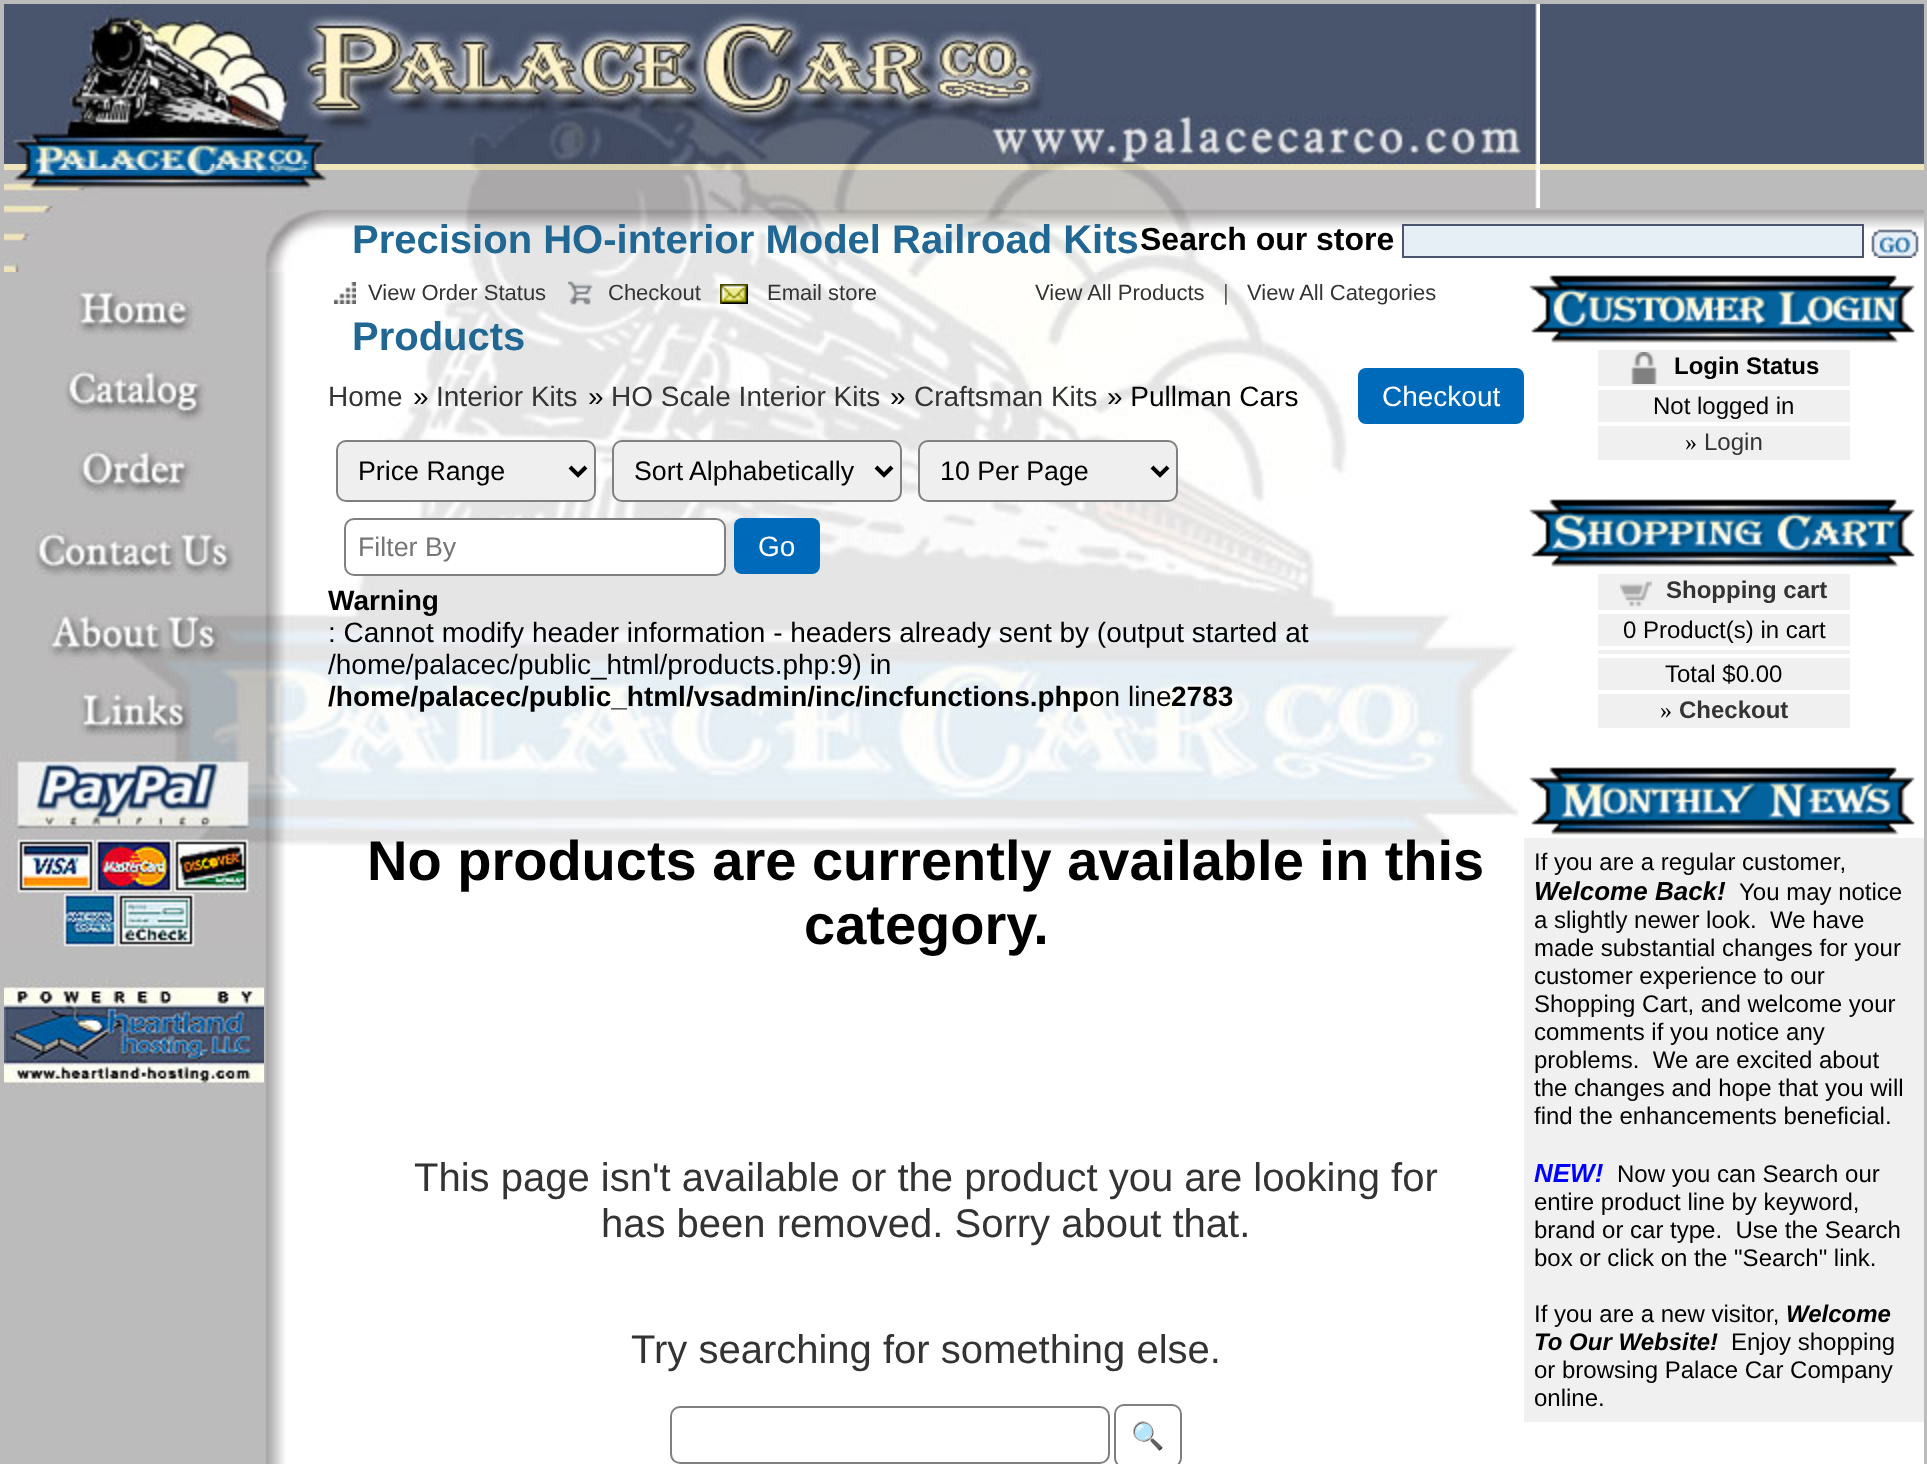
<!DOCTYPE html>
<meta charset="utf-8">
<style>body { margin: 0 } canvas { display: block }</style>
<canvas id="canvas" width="1927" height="1464"></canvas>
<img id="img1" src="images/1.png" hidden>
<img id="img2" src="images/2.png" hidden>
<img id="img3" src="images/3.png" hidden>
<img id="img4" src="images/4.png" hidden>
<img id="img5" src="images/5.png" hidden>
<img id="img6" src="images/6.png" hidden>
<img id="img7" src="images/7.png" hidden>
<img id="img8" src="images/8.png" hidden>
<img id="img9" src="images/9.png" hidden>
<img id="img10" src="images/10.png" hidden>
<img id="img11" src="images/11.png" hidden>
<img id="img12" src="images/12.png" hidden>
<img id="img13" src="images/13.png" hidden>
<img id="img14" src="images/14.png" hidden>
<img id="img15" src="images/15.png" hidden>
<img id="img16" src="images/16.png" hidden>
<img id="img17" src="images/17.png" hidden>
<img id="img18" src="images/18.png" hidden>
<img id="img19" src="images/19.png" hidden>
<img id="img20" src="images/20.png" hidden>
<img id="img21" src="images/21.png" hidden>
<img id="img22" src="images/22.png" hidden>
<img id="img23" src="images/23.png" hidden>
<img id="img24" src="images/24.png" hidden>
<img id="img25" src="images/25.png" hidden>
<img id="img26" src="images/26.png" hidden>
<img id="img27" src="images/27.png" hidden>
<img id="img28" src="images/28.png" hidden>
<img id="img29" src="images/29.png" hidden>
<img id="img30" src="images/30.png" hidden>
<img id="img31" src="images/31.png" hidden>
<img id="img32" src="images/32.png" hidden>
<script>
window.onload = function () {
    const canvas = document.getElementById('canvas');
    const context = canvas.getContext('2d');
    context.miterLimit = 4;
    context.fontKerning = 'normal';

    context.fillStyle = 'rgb(188, 187, 187)';
    context.fillRect(0, 0, 1927, 1464);
    context.fillStyle = 'rgb(73, 84, 109)';
    context.fillRect(1540, 4, 384, 160);
    context.drawImage(document.getElementById('img1'), 4, 4, 1536, 160);
    context.fillStyle = 'rgb(238, 229, 188)';
    context.fillRect(4, 164, 1920, 6);
    context.drawImage(document.getElementById('img2'), 22, 164, 1518, 6);
    context.drawImage(document.getElementById('img3'), 4, 170, 260, 38);
    context.drawImage(document.getElementById('img4'), 264, 170, 64, 26);
    context.drawImage(document.getElementById('img5'), 466, 170, 518, 38);
    context.drawImage(document.getElementById('img6'), 984, 170, 556, 38);
    context.drawImage(document.getElementById('img7'), 328, 209, 1596, 63);
    context.drawImage(document.getElementById('img8'), 4, 208, 260, 64);
    context.drawImage(document.getElementById('img9'), 264, 209, 64, 63);
    context.drawImage(document.getElementById('img10'), 464, 208, 752, 64);
    context.fillStyle = 'rgb(229, 239, 245)';
    context.beginPath();
    context.rect(1403, 225, 460, 32);
    context.fill();
    context.strokeStyle = 'rgb(73, 84, 109)';
    context.lineWidth = 2;
    context.stroke();
    context.drawImage(document.getElementById('img11'), 1871, 229, 48, 29);
    context.drawImage(document.getElementById('img12'), 328, 272, 1596, 1192);
    context.drawImage(document.getElementById('img13'), 70, 288, 126, 48);
    context.drawImage(document.getElementById('img14'), 64, 368, 142, 54);
    context.drawImage(document.getElementById('img15'), 77, 448, 119, 48);
    context.drawImage(document.getElementById('img16'), 35, 528, 200, 49);
    context.drawImage(document.getElementById('img17'), 48, 608, 216, 64);
    context.drawImage(document.getElementById('img18'), 79, 672, 185, 80);
    context.drawImage(document.getElementById('img19'), 4, 752, 260, 82);
    context.drawImage(document.getElementById('img20'), 6, 834, 258, 113);
    context.drawImage(document.getElementById('img21'), 4, 980, 260, 108);
    context.drawImage(document.getElementById('img22'), 265, 272, 63, 1192);
    context.drawImage(document.getElementById('img23'), 264, 614, 64, 232);
    context.drawImage(document.getElementById('img24'), 328, 272, 1191, 574);
    context.drawImage(document.getElementById('img25'), 334, 282, 22, 22);
    context.drawImage(document.getElementById('img26'), 568, 281, 25, 24);
    context.drawImage(document.getElementById('img27'), 720, 284, 28, 20);
    context.fillStyle = 'rgb(0, 106, 186)';
    context.beginPath();
    context.roundRect(1358, 368, 166, 56, 8);
    context.fill();
    context.fillStyle = 'rgb(239, 239, 239)';
    context.beginPath();
    context.roundRect(337, 441, 258, 60, 9);
    context.fill();
    context.strokeStyle = 'rgb(128, 128, 128)';
    context.stroke();
    context.beginPath();
    context.moveTo(570, 467);
    context.lineTo(578, 475);
    context.lineTo(586, 467);
    context.strokeStyle = 'rgb(0, 0, 0)';
    context.lineWidth = 4;
    context.stroke();
    context.beginPath();
    context.roundRect(613, 441, 288, 60, 9);
    context.fill();
    context.strokeStyle = 'rgb(128, 128, 128)';
    context.lineWidth = 2;
    context.stroke();
    context.beginPath();
    context.moveTo(876, 467);
    context.lineTo(884, 475);
    context.lineTo(892, 467);
    context.strokeStyle = 'rgb(0, 0, 0)';
    context.lineWidth = 4;
    context.stroke();
    context.beginPath();
    context.roundRect(919, 441, 258, 60, 9);
    context.fill();
    context.strokeStyle = 'rgb(128, 128, 128)';
    context.lineWidth = 2;
    context.stroke();
    context.beginPath();
    context.moveTo(1152, 467);
    context.lineTo(1160, 475);
    context.lineTo(1168, 467);
    context.strokeStyle = 'rgb(0, 0, 0)';
    context.lineWidth = 4;
    context.stroke();
    context.fillStyle = 'rgb(255, 255, 255)';
    context.beginPath();
    context.roundRect(345, 519, 380, 56, 9);
    context.fill();
    context.strokeStyle = 'rgb(128, 128, 128)';
    context.lineWidth = 2;
    context.stroke();
    context.fillStyle = 'rgb(0, 106, 186)';
    context.beginPath();
    context.roundRect(734, 518, 86, 56, 8);
    context.fill();
    context.beginPath();
    context.roundRect(671, 1407, 438, 56, 9);
    context.stroke();
    context.beginPath();
    context.roundRect(1115, 1405, 66, 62, 9);
    context.stroke();
    context.drawImage(document.getElementById('img28'), 1529, 275, 386, 68);
    context.fillStyle = 'rgb(240, 240, 240)';
    context.fillRect(1598, 350, 252, 36);
    context.drawImage(document.getElementById('img29'), 1631, 352, 26, 32);
    context.fillRect(1598, 390, 252, 32);
    context.fillRect(1598, 426, 252, 34);
    context.drawImage(document.getElementById('img30'), 1529, 499, 386, 68);
    context.fillRect(1598, 574, 252, 36);
    context.drawImage(document.getElementById('img31'), 1620, 581, 32, 26);
    context.fillRect(1598, 614, 252, 32);
    context.fillRect(1598, 650, 252, 4);
    context.fillRect(1598, 658, 252, 32);
    context.fillRect(1598, 694, 252, 34);
    context.drawImage(document.getElementById('img32'), 1529, 767, 386, 68);
    context.fillRect(1524, 838, 400, 584);
    context.font = 'bold 40px Liberation Sans';
    context.fillStyle = 'rgb(32, 103, 147)';
    context.fillText('Precision HO-interior Model Railroad Kits', 352, 253);
    context.font = 'bold 32px Liberation Sans';
    context.fillStyle = 'rgb(0, 0, 0)';
    context.fillText('Search our store', 1140, 250);
    context.font = '22px Liberation Sans';
    context.fillStyle = 'rgb(51, 51, 51)';
    context.fillText('View Order Status', 368, 300);
    context.fillText('Checkout', 608, 300);
    context.fillText('Email store', 767, 300);
    context.fillText('View All Products', 1035, 300);
    context.fillStyle = 'rgb(90, 90, 90)';
    context.fillText('|', 1223, 300);
    context.fillStyle = 'rgb(51, 51, 51)';
    context.fillText('View All Categories', 1247, 300);
    context.font = 'bold 40px Liberation Sans';
    context.fillStyle = 'rgb(32, 103, 147)';
    context.fillText('Products', 352, 350);
    context.font = '28px Liberation Sans';
    context.fillStyle = 'rgb(51, 51, 51)';
    context.fillText('Home', 328, 406);
    context.fillStyle = 'rgb(0, 0, 0)';
    context.fillText('»', 413, 406);
    context.fillStyle = 'rgb(51, 51, 51)';
    context.fillText('Interior Kits', 436, 406);
    context.fillStyle = 'rgb(0, 0, 0)';
    context.fillText('»', 588, 406);
    context.fillStyle = 'rgb(51, 51, 51)';
    context.fillText('HO Scale Interior Kits', 611, 406);
    context.fillStyle = 'rgb(0, 0, 0)';
    context.fillText('»', 890, 406);
    context.fillStyle = 'rgb(51, 51, 51)';
    context.fillText('Craftsman Kits', 914, 406);
    context.fillStyle = 'rgb(0, 0, 0)';
    context.fillText('» Pullman Cars', 1107, 406);
    context.fillStyle = 'rgb(255, 255, 255)';
    context.fillText('Checkout', 1382, 406);
    context.font = '26.75px Liberation Sans';
    context.fillStyle = 'rgb(0, 0, 0)';
    context.fillText('Price Range', 358, 480);
    context.fillText('Sort Alphabetically', 634, 480);
    context.fillText('10 Per Page', 940, 480);
    context.fillStyle = 'rgb(117, 117, 117)';
    context.fillText('Filter By', 358, 556);
    context.font = '28px Liberation Sans';
    context.fillStyle = 'rgb(255, 255, 255)';
    context.fillText('Go', 758, 556);
    context.font = 'bold 28px Liberation Sans';
    context.fillStyle = 'rgb(0, 0, 0)';
    context.fillText('Warning', 328, 610);
    context.font = '28px Liberation Sans';
    context.fillText(': Cannot modify header information - headers already sent by (output started at', 328, 642);
    context.fillText('/home/palacec/public_html/products.php:9) in', 328, 674);
    context.font = 'bold 28px Liberation Sans';
    context.fillText('/home/palacec/public_html/vsadmin/inc/incfunctions.php', 328, 706);
    context.font = '28px Liberation Sans';
    context.fillText('on line', 1089, 706);
    context.font = 'bold 28px Liberation Sans';
    context.fillText('2783', 1171, 706);
    context.font = 'bold 56px Liberation Sans';
    context.fillText('No products are currently available in this', 367, 880);
    context.fillText('category.', 804, 944);
    context.font = '40px Liberation Sans';
    context.fillStyle = 'rgb(51, 51, 51)';
    context.fillText('This page isn\'t available or the product you are looking for', 414, 1191);
    context.fillText('has been removed. Sorry about that.', 601, 1237);
    context.fillText('Try searching for something else.', 631, 1363);
    context.font = '26.75px Noto Color Emoji';
    context.fillStyle = 'rgb(0, 0, 0)';
    context.fillText('🔍', 1131, 1445);
    context.font = 'bold 24px Liberation Sans';
    context.fillText('Login Status', 1674, 374);
    context.font = '24px Liberation Sans';
    context.fillText('Not logged in', 1653, 414);
    context.font = '24px Liberation Serif';
    context.fillText('»', 1685, 450);
    context.font = '24px Liberation Sans';
    context.fillStyle = 'rgb(51, 51, 51)';
    context.fillText('Login', 1704, 450);
    context.font = 'bold 24px Liberation Sans';
    context.fillText('Shopping cart', 1666, 598);
    context.font = '24px Liberation Sans';
    context.fillStyle = 'rgb(0, 0, 0)';
    context.fillText('0 Product(s) in cart', 1623, 638);
    context.fillText('Total $0.00', 1665, 682);
    context.font = '24px Liberation Serif';
    context.fillText('»', 1660, 718);
    context.font = 'bold 24px Liberation Sans';
    context.fillStyle = 'rgb(51, 51, 51)';
    context.fillText('Checkout', 1679, 718);
    context.font = '24px Liberation Sans';
    context.fillStyle = 'rgb(0, 0, 0)';
    context.fillText('If you are a regular customer,', 1534, 870);
    context.font = 'italic bold 26px Liberation Sans';
    context.fillText('Welcome Back!', 1534, 900);
    context.font = '24px Liberation Sans';
    context.fillText('You may notice', 1739, 900);
    context.fillText('a slightly newer look.  We have', 1534, 928);
    context.fillText('made substantial changes for your', 1534, 956);
    context.fillText('customer experience to our', 1534, 984);
    context.fillText('Shopping Cart, and welcome your', 1534, 1012);
    context.fillText('comments if you notice any', 1534, 1040);
    context.fillText('problems.  We are excited about', 1534, 1068);
    context.fillText('the changes and hope that you will', 1534, 1096);
    context.fillText('find the enhancements beneficial.', 1534, 1124);
    context.font = 'italic bold 26px Liberation Sans';
    context.fillStyle = 'rgb(0, 0, 255)';
    context.fillText('NEW!', 1534, 1182);
    context.font = '24px Liberation Sans';
    context.fillStyle = 'rgb(0, 0, 0)';
    context.fillText('Now you can Search our', 1617, 1182);
    context.fillText('entire product line by keyword,', 1534, 1210);
    context.fillText('brand or car type.  Use the Search', 1534, 1238);
    context.fillText('box or click on the "Search" link.', 1534, 1266);
    context.fillText('If you are a new visitor,', 1534, 1322);
    context.font = 'italic bold 24px Liberation Sans';
    context.fillText('Welcome', 1786, 1322);
    context.fillText('To Our Website!', 1534, 1350);
    context.font = '24px Liberation Sans';
    context.fillText('Enjoy shopping', 1731, 1350);
    context.fillText('or browsing Palace Car Company', 1534, 1378);
    context.fillText('online.', 1534, 1406);
};
</script>
